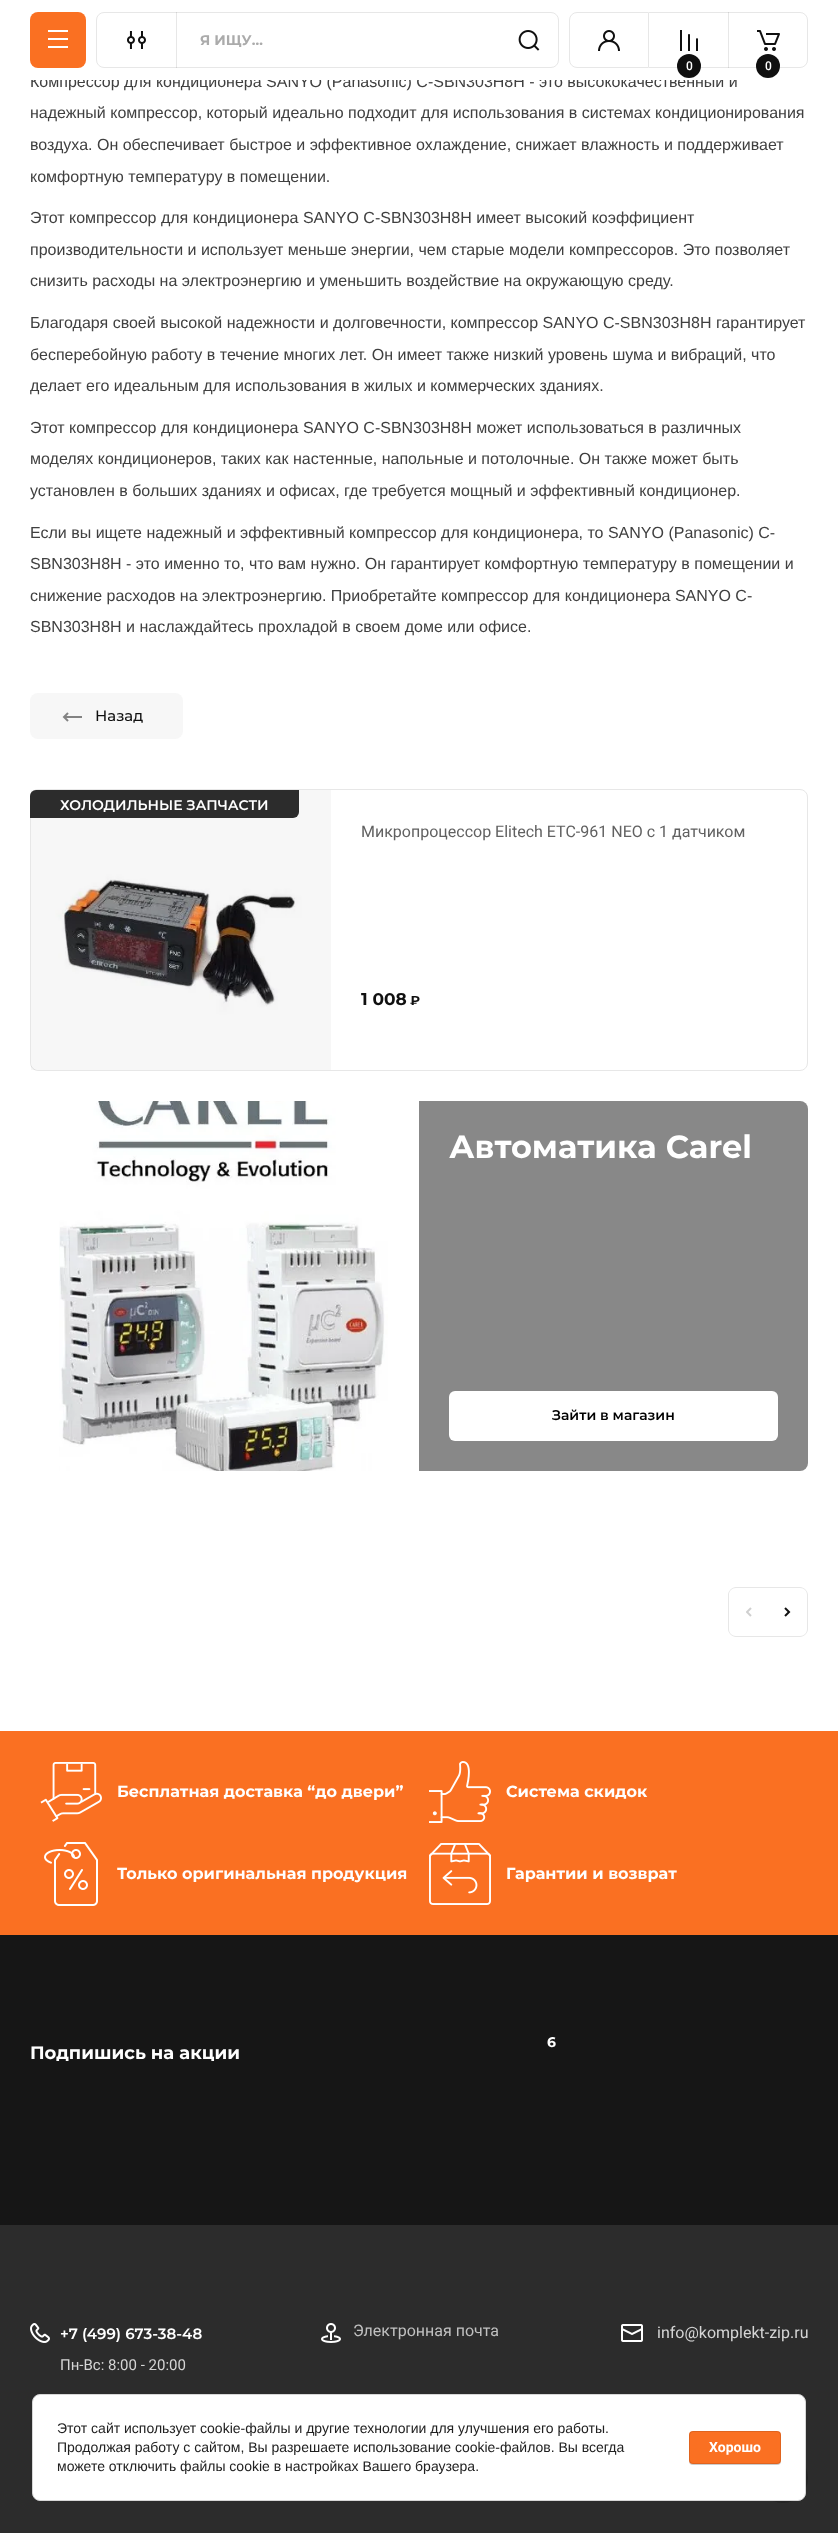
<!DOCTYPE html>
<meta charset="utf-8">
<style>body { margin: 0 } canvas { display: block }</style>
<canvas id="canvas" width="838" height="2533"></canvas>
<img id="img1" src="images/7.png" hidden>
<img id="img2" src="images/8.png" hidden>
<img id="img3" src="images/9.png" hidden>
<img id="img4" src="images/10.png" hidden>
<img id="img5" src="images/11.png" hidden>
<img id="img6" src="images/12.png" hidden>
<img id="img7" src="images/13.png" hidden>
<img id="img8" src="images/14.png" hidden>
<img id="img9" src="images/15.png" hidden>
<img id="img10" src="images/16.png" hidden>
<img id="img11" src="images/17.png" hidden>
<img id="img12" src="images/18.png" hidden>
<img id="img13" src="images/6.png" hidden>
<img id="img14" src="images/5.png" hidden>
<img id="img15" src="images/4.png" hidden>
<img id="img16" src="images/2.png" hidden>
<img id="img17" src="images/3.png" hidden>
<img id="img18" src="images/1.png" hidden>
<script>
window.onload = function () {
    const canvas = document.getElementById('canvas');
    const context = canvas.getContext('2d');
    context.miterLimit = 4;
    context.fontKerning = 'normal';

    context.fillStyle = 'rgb(44, 44, 44)';
    context.fillRect(0, 0, 838, 2533);
    context.fillStyle = 'rgb(255, 255, 255)';
    context.fillRect(0, 80, 838, 1651);
    context.fillStyle = 'rgb(247, 247, 247)';
    context.beginPath();
    context.roundRect(30, 693, 153, 46, 8);
    context.fill();
    context.drawImage(document.getElementById('img1'), 62, 712, 20, 10);
    context.beginPath();
    context.roundRect(30.5, 789.5, 777, 281, 7.5);
    context.strokeStyle = 'rgb(231, 231, 231)';
    context.stroke();
    context.drawImage(document.getElementById('img2'), 31, 790, 300, 280);
    context.fillStyle = 'rgba(0, 0, 0, 0.03)';
    context.fillRect(31, 790, 300, 280);
    context.fillStyle = 'rgb(44, 44, 44)';
    context.beginPath();
    context.roundRect(30, 790, 269, 28, [6, 0, 6, 0]);
    context.fill();
    context.drawImage(document.getElementById('img3'), 59, 1101, 329, 370);
    context.fillStyle = 'rgb(136, 136, 136)';
    context.beginPath();
    context.roundRect(419, 1101, 389, 370, [0, 8, 8, 0]);
    context.fill();
    context.fillStyle = 'rgb(255, 255, 255)';
    context.beginPath();
    context.roundRect(449, 1391, 329, 50, 6);
    context.fill();
    context.fillStyle = 'rgb(231, 231, 231)';
    context.beginPath();
    context.moveTo(736, 1587);
    context.lineTo(768, 1587);
    context.lineTo(768, 1637);
    context.lineTo(736, 1637);
    context.bezierCurveTo(732, 1637, 728, 1633, 728, 1629);
    context.lineTo(728, 1595);
    context.bezierCurveTo(728, 1591, 732, 1587, 736, 1587);
    context.closePath();
    context.moveTo(736, 1588);
    context.lineTo(768, 1588);
    context.lineTo(768, 1636);
    context.lineTo(736, 1636);
    context.bezierCurveTo(732, 1636, 729, 1633, 729, 1629);
    context.lineTo(729, 1595);
    context.bezierCurveTo(729, 1591, 732, 1588, 736, 1588);
    context.closePath();
    context.fill('evenodd');
    context.drawImage(document.getElementById('img4'), 746, 1607, 6, 10);
    context.beginPath();
    context.moveTo(768, 1587);
    context.lineTo(800, 1587);
    context.bezierCurveTo(804, 1587, 808, 1591, 808, 1595);
    context.lineTo(808, 1629);
    context.bezierCurveTo(808, 1633, 804, 1637, 800, 1637);
    context.lineTo(768, 1637);
    context.closePath();
    context.moveTo(768, 1588);
    context.lineTo(800, 1588);
    context.bezierCurveTo(804, 1588, 807, 1591, 807, 1595);
    context.lineTo(807, 1629);
    context.bezierCurveTo(807, 1633, 804, 1636, 800, 1636);
    context.lineTo(768, 1636);
    context.closePath();
    context.fill('evenodd');
    context.drawImage(document.getElementById('img5'), 784, 1607, 7, 10);
    context.fillStyle = 'rgb(250, 112, 34)';
    context.fillRect(0, 1731, 838, 204);
    context.drawImage(document.getElementById('img6'), 40, 1762, 62, 60);
    context.drawImage(document.getElementById('img7'), 429, 1761, 62, 62);
    context.drawImage(document.getElementById('img8'), 44, 1842, 54, 64);
    context.drawImage(document.getElementById('img9'), 429, 1843, 62, 62);
    context.fillStyle = 'rgb(22, 22, 22)';
    context.fillRect(0, 1935, 838, 290);
    context.drawImage(document.getElementById('img10'), 30, 2323, 20, 20);
    context.drawImage(document.getElementById('img11'), 321, 2323, 20, 20);
    context.drawImage(document.getElementById('img12'), 621, 2324, 22, 18);
    context.fillStyle = 'rgb(36, 36, 36)';
    context.beginPath();
    context.arc(783, 2478, 25, 0, 2 * Math.PI);
    context.fill();
    context.fillStyle = 'rgb(255, 255, 255)';
    context.beginPath();
    context.roundRect(32.5, 2394.5, 773, 106, 7.5);
    context.fill();
    context.strokeStyle = 'rgb(214, 214, 214)';
    context.stroke();
    context.fillStyle = 'rgba(0, 0, 0, 0.2)';
    context.filter = 'blur(0.5px)';
    context.beginPath();
    context.roundRect(689, 2432, 92, 33, 4);
    context.fill();
    context.filter = 'none';
    context.fillStyle = 'rgb(250, 112, 34)';
    context.beginPath();
    context.roundRect(689, 2431, 92, 33, 4);
    context.fill();
    context.beginPath();
    context.roundRect(689.5, 2431.5, 91, 32, 3.5);
    context.strokeStyle = 'rgba(0, 0, 0, 0.1)';
    context.stroke();
    context.font = '16px Liberation Sans';
    context.fillStyle = 'rgb(64, 64, 64)';
    context.fillText('Компрессор для кондиционера SANYO (Panasonic) C-SBN303H8H - это высококачественный и', 30, 87);
    context.fillStyle = 'rgb(255, 255, 255)';
    context.fillRect(0, 0, 838, 80);
    context.fillStyle = 'rgb(231, 231, 231)';
    context.fillRect(649, 67, 80, 1);
    context.fillRect(649, 12, 80, 1);
    context.beginPath();
    context.roundRect(728.5, 12.5, 79, 55, [0, 7.5, 7.5, 0]);
    context.strokeStyle = 'rgba(16, 16, 16, 0.1)';
    context.stroke();
    context.fillStyle = 'rgb(16, 16, 16)';
    context.beginPath();
    context.arc(768, 66, 12, 0, 2 * Math.PI);
    context.fill();
    context.font = '500 12px Roboto';
    context.fillStyle = 'rgb(255, 255, 255)';
    context.fillText('0', 765, 70);
    context.drawImage(document.getElementById('img13'), 757, 30, 23, 21);
    context.fillStyle = 'rgb(16, 16, 16)';
    context.beginPath();
    context.arc(689, 66, 12, 0, 2 * Math.PI);
    context.fill();
    context.fillStyle = 'rgb(255, 255, 255)';
    context.fillText('0', 686, 70);
    context.drawImage(document.getElementById('img14'), 680, 30, 18, 21);
    context.beginPath();
    context.roundRect(569.5, 12.5, 79, 55, [7.5, 0, 0, 7.5]);
    context.strokeStyle = 'rgb(231, 231, 231)';
    context.stroke();
    context.drawImage(document.getElementById('img15'), 598, 30, 22, 21);
    context.beginPath();
    context.roundRect(96.5, 12.5, 462, 55, 7.5);
    context.stroke();
    context.drawImage(document.getElementById('img16'), 127, 31, 19, 18);
    context.drawImage(document.getElementById('img17'), 518, 30, 22, 21);
    context.font = 'bold 14px Montserrat';
    context.fillStyle = 'rgb(171, 171, 171)';
    context.fillText('Я ИЩУ…', 200, 45);
    context.fillStyle = 'rgba(16, 16, 16, 0.1)';
    context.fillRect(176, 12, 1, 56);
    context.fillStyle = 'rgb(250, 112, 34)';
    context.beginPath();
    context.roundRect(30, 12, 56, 56, 8);
    context.fill();
    context.drawImage(document.getElementById('img18'), 48, 30, 20, 18);
    context.font = '16px Liberation Sans';
    context.fillStyle = 'rgb(64, 64, 64)';
    context.fillText('надежный компрессор, который идеально подходит для использования в системах кондиционирования', 30, 118);
    context.fillText('воздуха. Он обеспечивает быстрое и эффективное охлаждение, снижает влажность и поддерживает', 30, 150);
    context.fillText('комфортную температуру в помещении.', 30, 182);
    context.fillText('Этот компрессор для кондиционера SANYO C-SBN303H8H имеет высокий коэффициент', 30, 223);
    context.fillText('производительности и использует меньше энергии, чем старые модели компрессоров. Это позволяет', 30, 255);
    context.fillText('снизить расходы на электроэнергию и уменьшить воздействие на окружающую среду.', 30, 286);
    context.fillText('Благодаря своей высокой надежности и долговечности, компрессор SANYO C-SBN303H8H гарантирует', 30, 328);
    context.fillText('бесперебойную работу в течение многих лет. Он имеет также низкий уровень шума и вибраций, что', 30, 360);
    context.fillText('делает его идеальным для использования в жилых и коммерческих зданиях.', 30, 391);
    context.fillText('Этот компрессор для кондиционера SANYO C-SBN303H8H может использоваться в различных', 30, 433);
    context.fillText('моделях кондиционеров, таких как настенные, напольные и потолочные. Он также может быть', 30, 464);
    context.fillText('установлен в больших зданиях и офисах, где требуется мощный и эффективный кондиционер.', 30, 496);
    context.fillText('Если вы ищете надежный и эффективный компрессор для кондиционера, то SANYO (Panasonic) C-', 30, 538);
    context.fillText('SBN303H8H - это именно то, что вам нужно. Он гарантирует комфортную температуру в помещении и', 30, 569);
    context.fillText('снижение расходов на электроэнергию. Приобретайте компрессор для кондиционера SANYO C-', 30, 601);
    context.fillText('SBN303H8H и наслаждайтесь прохладой в своем доме или офисе.', 30, 632);
    context.font = '500 15px Montserrat';
    context.fillStyle = 'rgb(16, 16, 16)';
    context.fillText('Назад', 95, 721);
    context.font = '600 14px Montserrat';
    context.fillStyle = 'rgb(255, 255, 255)';
    context.fillText('ХОЛОДИЛЬНЫЕ ЗАПЧАСТИ', 60, 810);
    context.font = '16px Roboto';
    context.fillStyle = 'rgb(97, 97, 97)';
    context.fillText('Микропроцессор Elitech ЕТС-961 NEO с 1 датчиком', 361, 837);
    context.font = 'bold 17px Montserrat';
    context.fillStyle = 'rgb(16, 16, 16)';
    context.fillText('1 008', 361, 1005);
    context.font = 'bold 13px Montserrat';
    context.fillText('₽', 410, 1005);
    context.font = 'bold 32px Montserrat';
    context.fillStyle = 'rgb(255, 255, 255)';
    context.fillText('Автоматика Carel', 449, 1158);
    context.font = '600 14px Montserrat';
    context.fillStyle = 'rgb(0, 0, 0)';
    context.fillText('Зайти в магазин', 552, 1420);
    context.font = 'bold 16px Montserrat';
    context.fillStyle = 'rgb(255, 255, 255)';
    context.fillText('Бесплатная доставка “до двери”', 117, 1797);
    context.fillText('Система скидок', 506, 1797);
    context.fillText('Только оригинальная продукция', 117, 1879);
    context.fillText('Гарантии и возврат', 506, 1879);
    context.font = 'bold 14px Montserrat';
    context.fillText('6', 547, 2047);
    context.font = 'bold 18px Montserrat';
    context.fillText('Подпишись на акции', 30, 2059);
    context.font = '600 15px Montserrat';
    context.fillText('+7 (499) 673-38-48', 60, 2339);
    context.font = '15px Roboto';
    context.fillStyle = 'rgb(213, 213, 213)';
    context.fillText('Пн-Вс: 8:00 - 20:00', 60, 2370);
    context.font = '16px Roboto';
    context.fillStyle = 'rgb(192, 192, 192)';
    context.fillText('Электронная почта', 353, 2336);
    context.fillStyle = 'rgb(213, 213, 213)';
    context.fillText('info@komplekt-zip.ru', 657, 2338);
    context.font = '14px Liberation Sans';
    context.fillStyle = 'rgb(33, 33, 33)';
    context.fillText('Этот сайт использует cookie-файлы и другие технологии для улучшения его работы.', 57, 2433);
    context.fillText('Продолжая работу с сайтом, Вы разрешаете использование cookie-файлов. Вы всегда', 57, 2452);
    context.fillText('можете отключить файлы cookie в настройках Вашего браузера.', 57, 2471);
    context.font = 'bold 14px Roboto';
    context.fillStyle = 'rgb(255, 255, 255)';
    context.fillText('Хорошо', 709, 2452);
};
</script>
